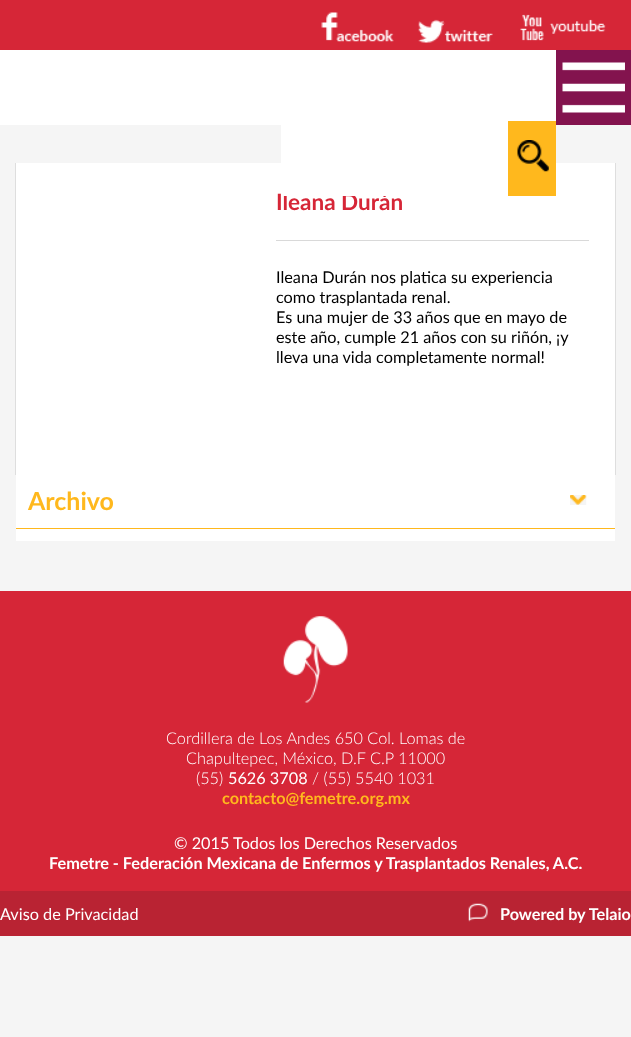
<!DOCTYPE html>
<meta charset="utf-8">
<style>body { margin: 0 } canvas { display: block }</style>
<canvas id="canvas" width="631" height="1037"></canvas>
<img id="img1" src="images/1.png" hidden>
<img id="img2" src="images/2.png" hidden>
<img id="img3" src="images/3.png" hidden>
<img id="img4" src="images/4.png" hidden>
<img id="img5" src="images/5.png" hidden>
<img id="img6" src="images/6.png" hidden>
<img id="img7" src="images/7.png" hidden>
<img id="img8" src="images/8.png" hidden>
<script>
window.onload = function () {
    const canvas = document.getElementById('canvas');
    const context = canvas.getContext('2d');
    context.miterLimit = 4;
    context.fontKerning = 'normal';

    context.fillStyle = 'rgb(245, 245, 245)';
    context.fillRect(0, 0, 631, 1037);
    context.fillStyle = 'rgb(214, 38, 55)';
    context.fillRect(0, 0, 631, 50);
    context.drawImage(document.getElementById('img1'), 321, 12, 73, 30);
    context.drawImage(document.getElementById('img2'), 418, 19, 75, 24);
    context.drawImage(document.getElementById('img3'), 520, 14, 86, 27);
    context.fillStyle = 'rgb(255, 255, 255)';
    context.fillRect(0, 50, 556, 75);
    context.fillStyle = 'rgb(131, 19, 78)';
    context.fillRect(556, 50, 75, 75);
    context.drawImage(document.getElementById('img4'), 562, 62, 63, 51);
    context.fillStyle = 'rgb(222, 222, 222)';
    context.filter = 'blur(0.5px)';
    context.beginPath();
    context.rect(15, 163, 601, 312);
    context.fill();
    context.filter = 'none';
    context.fillStyle = 'rgb(255, 255, 255)';
    context.fillRect(16, 163, 599, 378);
    context.fillStyle = 'rgb(255, 184, 29)';
    context.fillRect(508, 121, 48, 75);
    context.drawImage(document.getElementById('img5'), 517, 140, 32, 32);
    context.fillStyle = 'rgb(217, 217, 217)';
    context.fillRect(276, 240, 313, 1);
    context.drawImage(document.getElementById('img6'), 570, 495, 17, 10);
    context.fillStyle = 'rgb(255, 184, 29)';
    context.fillRect(16, 528, 599, 1);
    context.fillStyle = 'rgb(214, 38, 55)';
    context.fillRect(0, 591, 631, 300);
    context.drawImage(document.getElementById('img7'), 283, 616, 65, 87);
    context.fillStyle = 'rgb(185, 35, 51)';
    context.fillRect(0, 891, 631, 45);
    context.drawImage(document.getElementById('img8'), 468, 903, 20, 19);
    context.font = 'bold 22.5px Lato';
    context.fillStyle = 'rgb(214, 38, 55)';
    context.fillText('Ileana Durán', 276, 210);
    context.fillStyle = 'rgb(255, 255, 255)';
    context.fillRect(281, 125, 227, 71);
    context.font = '16.25px Lato';
    context.fillStyle = 'rgb(0, 0, 0)';
    context.fillText('Ileana Durán nos platica su experiencia', 276, 283);
    context.fillText('como trasplantada renal.', 276, 303);
    context.fillText('Es una mujer de 33 años que en mayo de', 276, 323);
    context.fillText('este año, cumple 21 años con su riñón, ¡y', 276, 343);
    context.fillText('lleva una vida completamente normal!', 276, 363);
    context.font = 'bold 25px Lato';
    context.fillStyle = 'rgb(255, 184, 29)';
    context.fillText('Archivo', 28, 510);
    context.font = '300 16.25px Lato';
    context.fillStyle = 'rgb(255, 255, 255)';
    context.fillText('Cordillera de Los Andes 650 Col. Lomas de', 166, 744);
    context.fillText('Chapultepec, México, D.F C.P 11000', 186, 764);
    context.fillText('(55)', 196, 784);
    context.font = '16.25px Lato';
    context.fillText('5626 3708', 228, 784);
    context.font = '300 16.25px Lato';
    context.fillText('/ (55) 5540 1031', 312, 784);
    context.font = 'bold 16.25px Lato';
    context.fillStyle = 'rgb(255, 184, 29)';
    context.fillText('contacto@femetre.org.mx', 222, 804);
    context.font = '16.25px Lato';
    context.fillStyle = 'rgb(255, 255, 255)';
    context.fillText('© 2015 Todos los Derechos Reservados', 174, 849);
    context.font = 'bold 16.25px Lato';
    context.fillText('Femetre - Federación Mexicana de Enfermos y Trasplantados Renales, A.C.', 49, 869);
    context.font = '16.25px Lato';
    context.fillText('Aviso de Privacidad', 0, 920);
    context.font = 'bold 16.25px Lato';
    context.fillText('Powered by Telaio', 500, 920);
};
</script>
